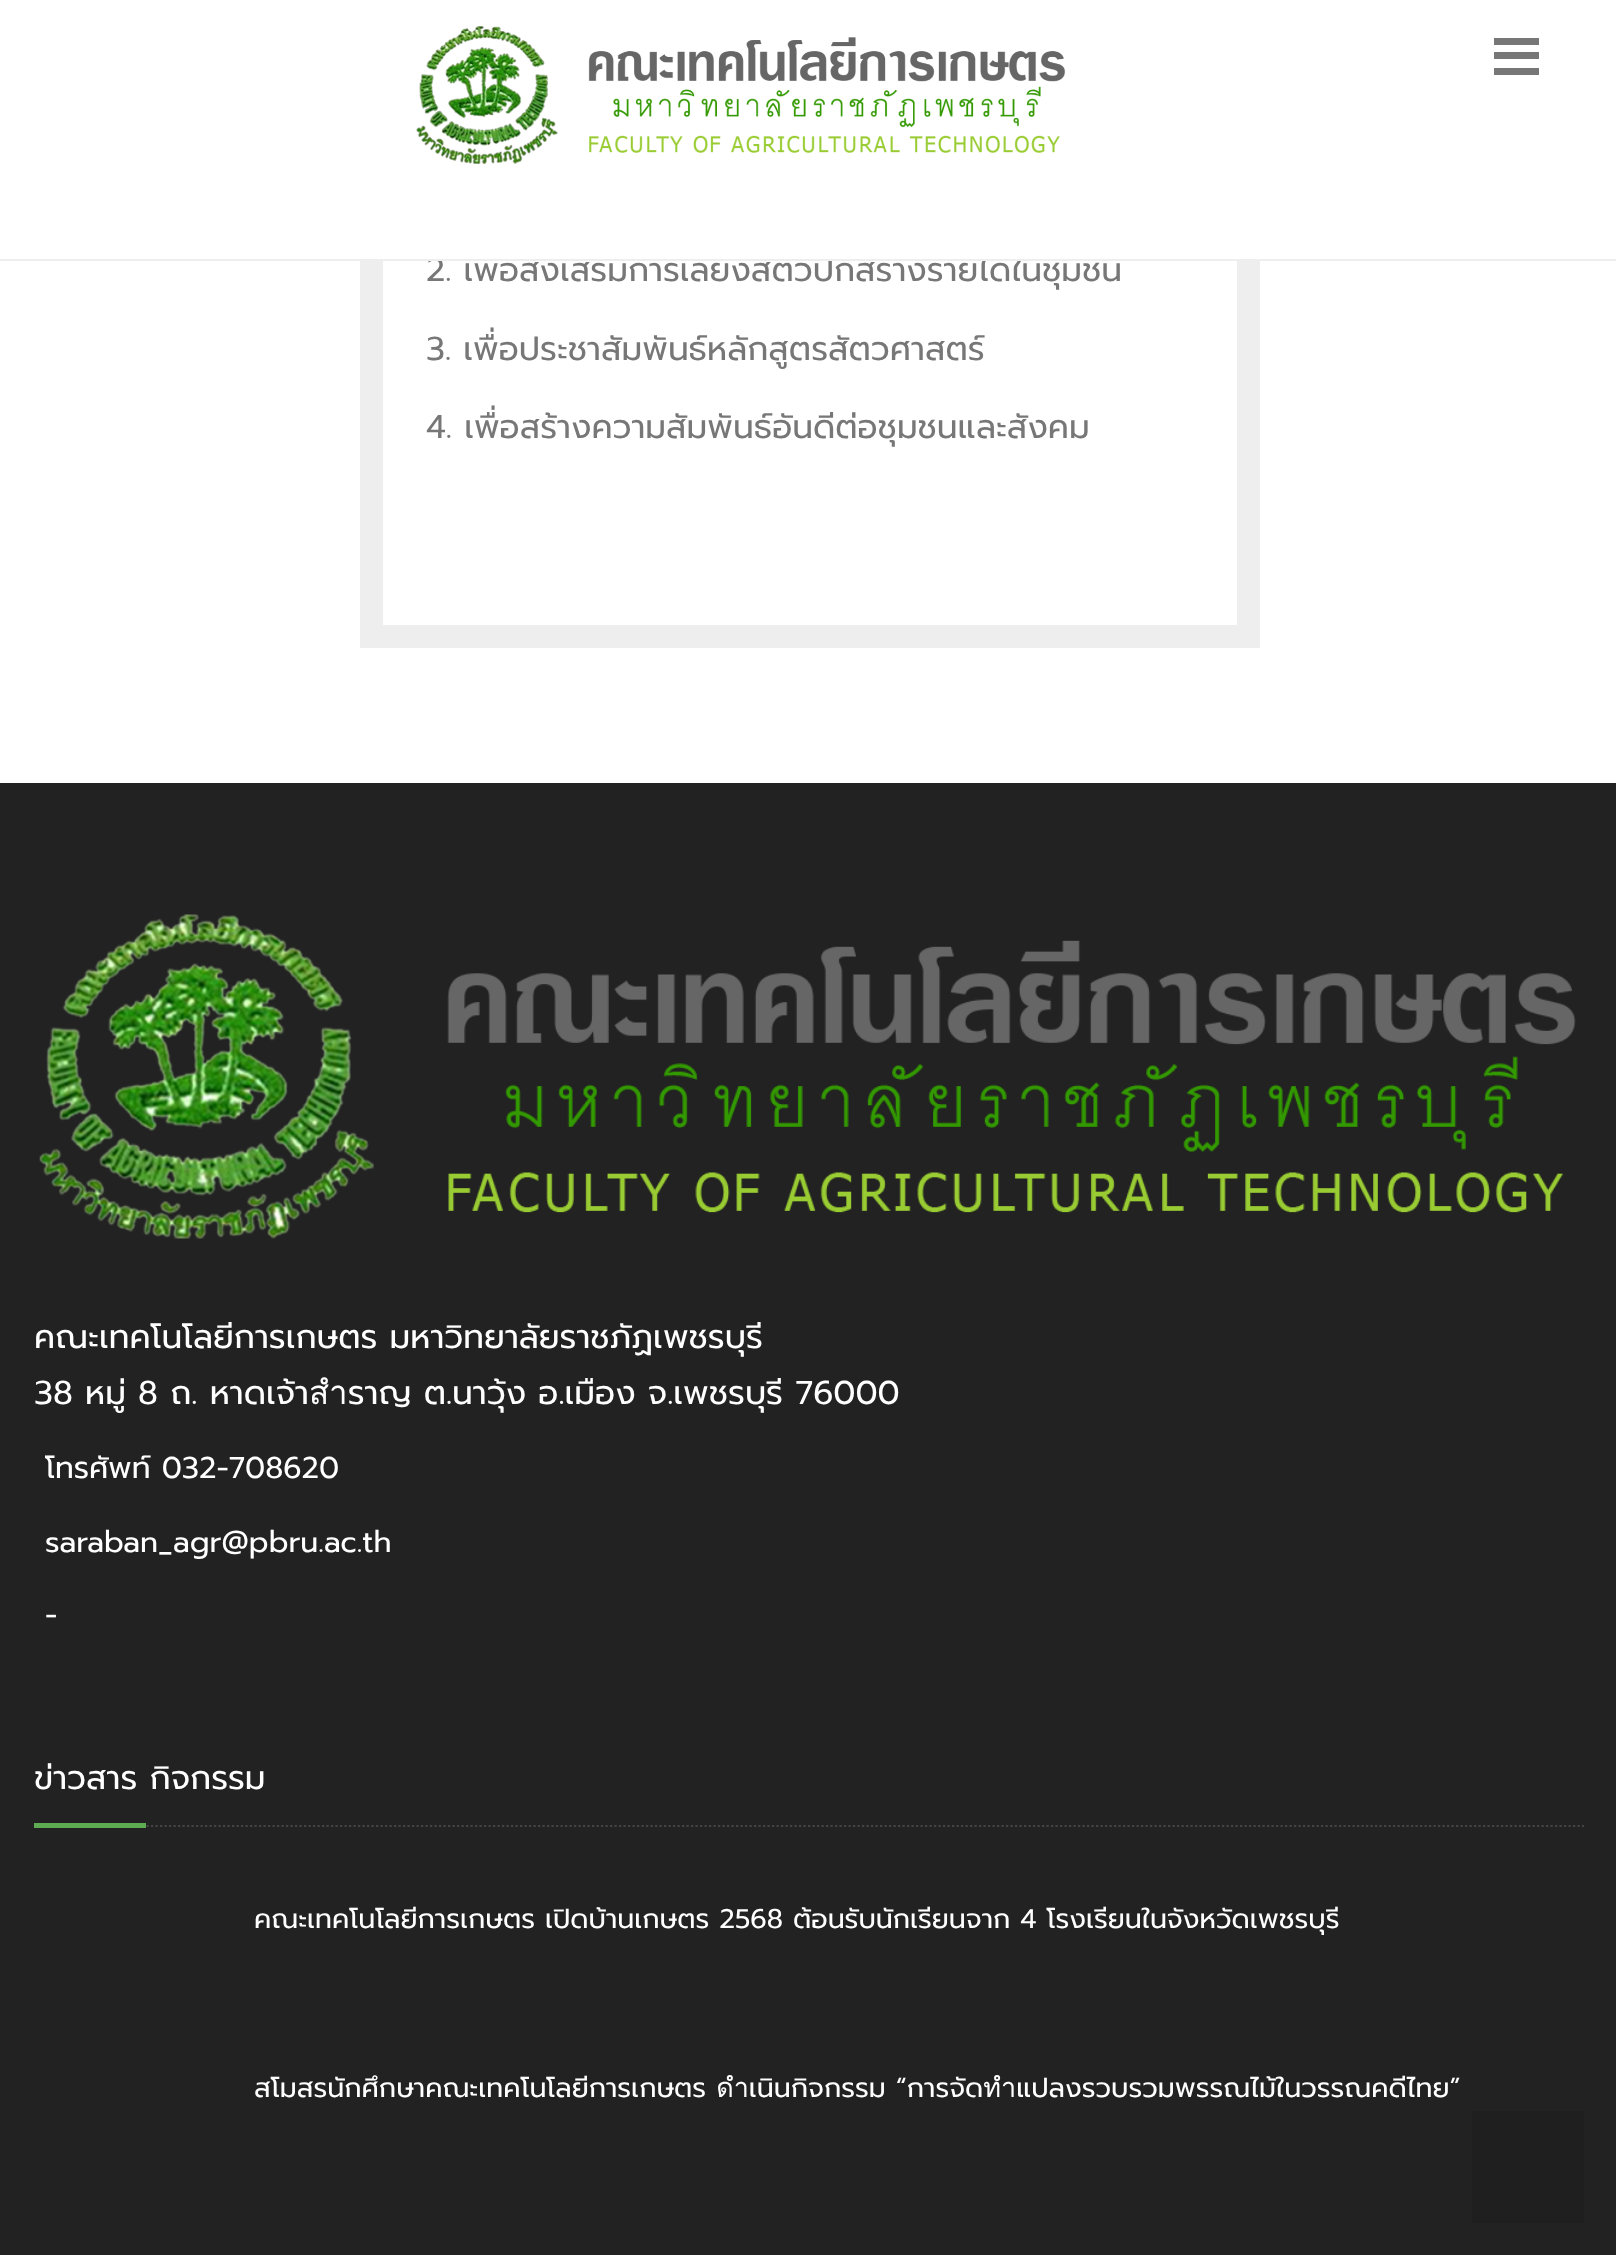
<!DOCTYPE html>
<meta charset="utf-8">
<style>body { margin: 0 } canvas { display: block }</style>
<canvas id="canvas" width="1616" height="2255"></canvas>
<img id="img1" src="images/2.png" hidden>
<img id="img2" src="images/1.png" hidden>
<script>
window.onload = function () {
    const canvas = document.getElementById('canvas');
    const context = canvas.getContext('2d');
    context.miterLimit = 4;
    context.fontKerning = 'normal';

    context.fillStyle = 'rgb(255, 255, 255)';
    context.fillRect(0, 0, 1616, 2255);
    context.fillStyle = 'rgb(119, 119, 119)';
    context.fillRect(1494, 38, 45, 7);
    context.fillRect(1494, 52, 45, 7);
    context.fillRect(1494, 68, 45, 7);
    context.strokeStyle = 'rgb(238, 238, 238)';
    context.lineWidth = 23;
    context.strokeRect(371.5, -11.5, 877, 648);
    context.fillStyle = 'rgb(34, 34, 34)';
    context.fillRect(0, 783, 1616, 1472);
    context.drawImage(document.getElementById('img1'), 39, 914, 1537, 325);
    context.beginPath();
    context.moveTo(34, 1826);
    context.lineTo(1584, 1826);
    context.strokeStyle = 'rgb(68, 68, 68)';
    context.lineWidth = 2.2;
    context.setLineDash([2.25, 2.25]);
    context.stroke();
    context.fillStyle = 'rgb(94, 172, 82)';
    context.fillRect(34, 1823, 112, 5);
    context.fillStyle = 'rgb(31, 31, 31)';
    context.fillRect(1472, 2111, 112, 112);
    context.font = '33px Prompt';
    context.fillStyle = 'rgb(119, 119, 119)';
    context.fillText('2. เพื่อส่งเสริมการเลี้ยงสัตว์ปีกสร้างรายได้ในชุมชน', 426, 281);
    context.fillStyle = 'rgb(255, 255, 255)';
    context.fillRect(360, 0, 900, 259);
    context.drawImage(document.getElementById('img2'), 416, 26, 650, 138);
    context.fillStyle = 'rgb(238, 238, 238)';
    context.fillRect(0, 259, 1616, 2);
    context.fillStyle = 'rgb(119, 119, 119)';
    context.fillText('3. เพื่อประชาสัมพันธ์หลักสูตรสัตวศาสตร์', 426, 360);
    context.fillText('4. เพื่อสร้างความสัมพันธ์อันดีต่อชุมชนและสังคม', 426, 438);
    context.fillStyle = 'rgb(255, 255, 255)';
    context.fillText('คณะเทคโนโลยีการเกษตร มหาวิทยาลัยราชภัฏเพชรบุรี', 34, 1348);
    context.fillText('38 หมู่ 8 ถ. หาดเจ้าสำราญ ต.นาวุ้ง อ.เมือง จ.เพชรบุรี 76000', 34, 1404);
    context.font = '30px Prompt';
    context.fillText('โทรศัพท์ 032-708620', 45, 1478);
    context.fillText('saraban_agr@pbru.ac.th', 45, 1552);
    context.fillText('-', 45, 1625);
    context.font = '33px Prompt';
    context.fillText('ข่าวสาร กิจกรรม', 34, 1789);
    context.font = '27px Prompt';
    context.fillText('คณะเทคโนโลยีการเกษตร เปิดบ้านเกษตร 2568 ต้อนรับนักเรียนจาก 4 โรงเรียนในจังหวัดเพชรบุรี', 254, 1928);
    context.fillText('สโมสรนักศึกษาคณะเทคโนโลยีการเกษตร ดำเนินกิจกรรม “การจัดทำแปลงรวบรวมพรรณไม้ในวรรณคดีไทย”', 254, 2097);
};
</script>
